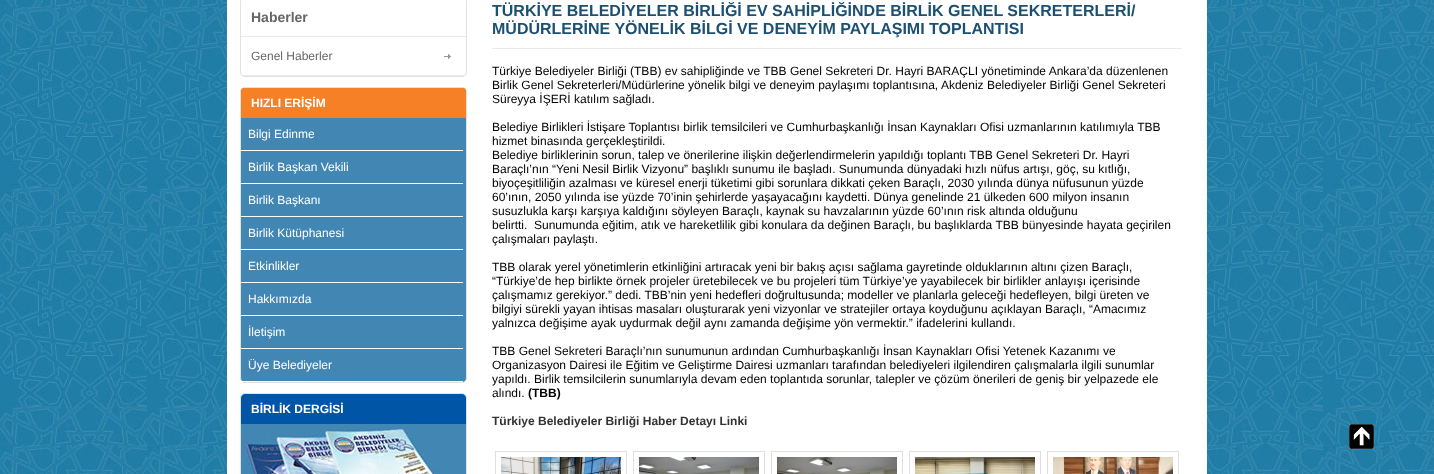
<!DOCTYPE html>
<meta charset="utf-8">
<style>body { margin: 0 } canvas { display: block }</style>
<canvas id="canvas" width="1434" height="474"></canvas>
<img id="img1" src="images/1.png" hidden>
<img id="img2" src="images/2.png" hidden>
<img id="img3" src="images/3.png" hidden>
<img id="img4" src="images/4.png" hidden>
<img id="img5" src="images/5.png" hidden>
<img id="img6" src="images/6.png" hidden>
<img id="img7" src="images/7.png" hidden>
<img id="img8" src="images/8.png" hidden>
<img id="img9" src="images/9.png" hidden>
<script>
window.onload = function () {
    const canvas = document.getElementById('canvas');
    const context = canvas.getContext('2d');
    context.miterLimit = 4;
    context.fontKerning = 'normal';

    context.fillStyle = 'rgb(255, 255, 255)';
    context.fillRect(0, 0, 1434, 474);
    context.drawImage(document.getElementById('img1'), 0, 0, 1434, 474);
    context.fillRect(227, 0, 980, 474);
    context.beginPath();
    context.roundRect(240.5, -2.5, 226, 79, 4.5);
    context.strokeStyle = 'rgb(226, 226, 226)';
    context.stroke();
    context.fillStyle = 'rgb(234, 234, 234)';
    context.fillRect(241, 36, 225, 1);
    context.fillRect(241, 75, 225, 1);
    context.drawImage(document.getElementById('img2'), 444, 54, 7, 5);
    context.fillStyle = 'rgb(66, 134, 180)';
    context.beginPath();
    context.roundRect(240.5, 87.5, 226, 295, 4.5);
    context.fill();
    context.stroke();
    context.fillStyle = 'rgb(245, 128, 38)';
    context.beginPath();
    context.roundRect(241, 88, 225, 30, [3, 3, 0, 0]);
    context.fill();
    context.fillStyle = 'rgb(255, 255, 255)';
    context.fillRect(241, 150, 222, 1);
    context.fillRect(241, 183, 222, 1);
    context.fillRect(241, 216, 222, 1);
    context.fillRect(241, 249, 222, 1);
    context.fillRect(241, 282, 222, 1);
    context.fillRect(241, 315, 222, 1);
    context.fillRect(241, 348, 222, 1);
    context.fillRect(241, 381, 222, 1);
    context.fillStyle = 'rgb(66, 134, 180)';
    context.beginPath();
    context.roundRect(240.5, 393.5, 226, 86, 4.5);
    context.fill();
    context.stroke();
    context.fillStyle = 'rgb(0, 85, 167)';
    context.beginPath();
    context.roundRect(241, 394, 225, 30, [5, 5, 0, 0]);
    context.fill();
    context.drawImage(document.getElementById('img3'), 246, 429, 192, 45);
    context.fillStyle = 'rgb(234, 234, 234)';
    context.fillRect(492, 48, 690, 1);
    context.strokeStyle = 'rgb(223, 223, 223)';
    context.strokeRect(495.5, 451.5, 131, 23);
    context.drawImage(document.getElementById('img4'), 501, 457, 120, 17);
    context.strokeRect(633.5, 451.5, 131, 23);
    context.drawImage(document.getElementById('img5'), 639, 457, 120, 17);
    context.strokeRect(771.5, 451.5, 131, 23);
    context.drawImage(document.getElementById('img6'), 777, 457, 120, 17);
    context.strokeRect(909.5, 451.5, 131, 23);
    context.drawImage(document.getElementById('img7'), 915, 457, 120, 17);
    context.strokeRect(1047.5, 451.5, 131, 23);
    context.drawImage(document.getElementById('img8'), 1053, 457, 120, 17);
    context.drawImage(document.getElementById('img9'), 1349, 424, 25, 25);
    context.font = 'bold 14px Liberation Sans';
    context.fillStyle = 'rgb(102, 102, 102)';
    context.fillText('Haberler', 251, 22);
    context.font = '12px Liberation Sans';
    context.fillText('Genel Haberler', 251, 60);
    context.font = 'bold 12px Liberation Sans';
    context.fillStyle = 'rgb(255, 255, 255)';
    context.fillText('HIZLI ERİŞİM', 251, 107);
    context.font = '12px Liberation Sans';
    context.fillText('Bilgi Edinme', 248, 138);
    context.fillText('Birlik Başkan Vekili', 248, 171);
    context.fillText('Birlik Başkanı', 248, 204);
    context.fillText('Birlik Kütüphanesi', 248, 237);
    context.fillText('Etkinlikler', 248, 270);
    context.fillText('Hakkımızda', 248, 303);
    context.fillText('İletişim', 248, 336);
    context.fillText('Üye Belediyeler', 248, 369);
    context.font = 'bold 12px Liberation Sans';
    context.fillText('BİRLİK DERGİSİ', 251, 413);
    context.font = 'bold 16px Liberation Sans';
    context.fillStyle = 'rgb(28, 80, 115)';
    context.fillText('TÜRKİYE BELEDİYELER BİRLİĞİ EV SAHİPLİĞİNDE BİRLİK GENEL SEKRETERLERİ/', 492, 16);
    context.fillText('MÜDÜRLERİNE YÖNELİK BİLGİ VE DENEYİM PAYLAŞIMI TOPLANTISI', 492, 34);
    context.font = '12px Liberation Sans';
    context.fillStyle = 'rgb(0, 0, 0)';
    context.fillText('Türkiye Belediyeler Birliği (TBB) ev sahipliğinde ve TBB Genel Sekreteri Dr. Hayri BARAÇLI yönetiminde Ankara’da düzenlenen', 492, 75);
    context.fillText('Birlik Genel Sekreterleri/Müdürlerine yönelik bilgi ve deneyim paylaşımı toplantısına, Akdeniz Belediyeler Birliği Genel Sekreteri', 492, 89);
    context.fillText('Süreyya İŞERİ katılım sağladı.', 492, 103);
    context.fillText('Belediye Birlikleri İstişare Toplantısı birlik temsilcileri ve Cumhurbaşkanlığı İnsan Kaynakları Ofisi uzmanlarının katılımıyla TBB', 492, 131);
    context.fillText('hizmet binasında gerçekleştirildi.', 492, 145);
    context.fillText('Belediye birliklerinin sorun, talep ve önerilerine ilişkin değerlendirmelerin yapıldığı toplantı TBB Genel Sekreteri Dr. Hayri', 492, 159);
    context.fillText('Baraçlı’nın “Yeni Nesil Birlik Vizyonu” başlıklı sunumu ile başladı. Sunumunda dünyadaki hızlı nüfus artışı, göç, su kıtlığı,', 492, 173);
    context.fillText('biyoçeşitliliğin azalması ve küresel enerji tüketimi gibi sorunlara dikkati çeken Baraçlı, 2030 yılında dünya nüfusunun yüzde', 492, 187);
    context.fillText('60’ının, 2050 yılında ise yüzde 70’inin şehirlerde yaşayacağını kaydetti. Dünya genelinde 21 ülkeden 600 milyon insanın', 492, 201);
    context.fillText('susuzlukla karşı karşıya kaldığını söyleyen Baraçlı, kaynak su havzalarının yüzde 60’ının risk altında olduğunu', 492, 215);
    context.fillText('belirtti.  Sunumunda eğitim, atık ve hareketlilik gibi konulara da değinen Baraçlı, bu başlıklarda TBB bünyesinde hayata geçirilen', 492, 229);
    context.fillText('çalışmaları paylaştı.', 492, 243);
    context.fillText('TBB olarak yerel yönetimlerin etkinliğini artıracak yeni bir bakış açısı sağlama gayretinde olduklarının altını çizen Baraçlı,', 492, 271);
    context.fillText('“Türkiye’de hep birlikte örnek projeler üretebilecek ve bu projeleri tüm Türkiye’ye yayabilecek bir birlikler anlayışı içerisinde', 492, 285);
    context.fillText('çalışmamız gerekiyor.” dedi. TBB’nin yeni hedefleri doğrultusunda; modeller ve planlarla geleceği hedefleyen, bilgi üreten ve', 492, 299);
    context.fillText('bilgiyi sürekli yayan ihtisas masaları oluşturarak yeni vizyonlar ve stratejiler ortaya koyduğunu açıklayan Baraçlı, “Amacımız', 492, 313);
    context.fillText('yalnızca değişime ayak uydurmak değil aynı zamanda değişime yön vermektir.” ifadelerini kullandı.', 492, 327);
    context.fillText('TBB Genel Sekreteri Baraçlı’nın sunumunun ardından Cumhurbaşkanlığı İnsan Kaynakları Ofisi Yetenek Kazanımı ve', 492, 355);
    context.fillText('Organizasyon Dairesi ile Eğitim ve Geliştirme Dairesi uzmanları tarafından belediyeleri ilgilendiren çalışmalarla ilgili sunumlar', 492, 369);
    context.fillText('yapıldı. Birlik temsilcilerin sunumlarıyla devam eden toplantıda sorunlar, talepler ve çözüm önerileri de geniş bir yelpazede ele', 492, 383);
    context.fillText('alındı.', 492, 397);
    context.font = 'bold 12px Liberation Sans';
    context.fillText('(TBB)', 528, 397);
    context.fillStyle = 'rgb(51, 51, 51)';
    context.fillText('Türkiye Belediyeler Birliği Haber Detayı Linki', 492, 425);
};
</script>
